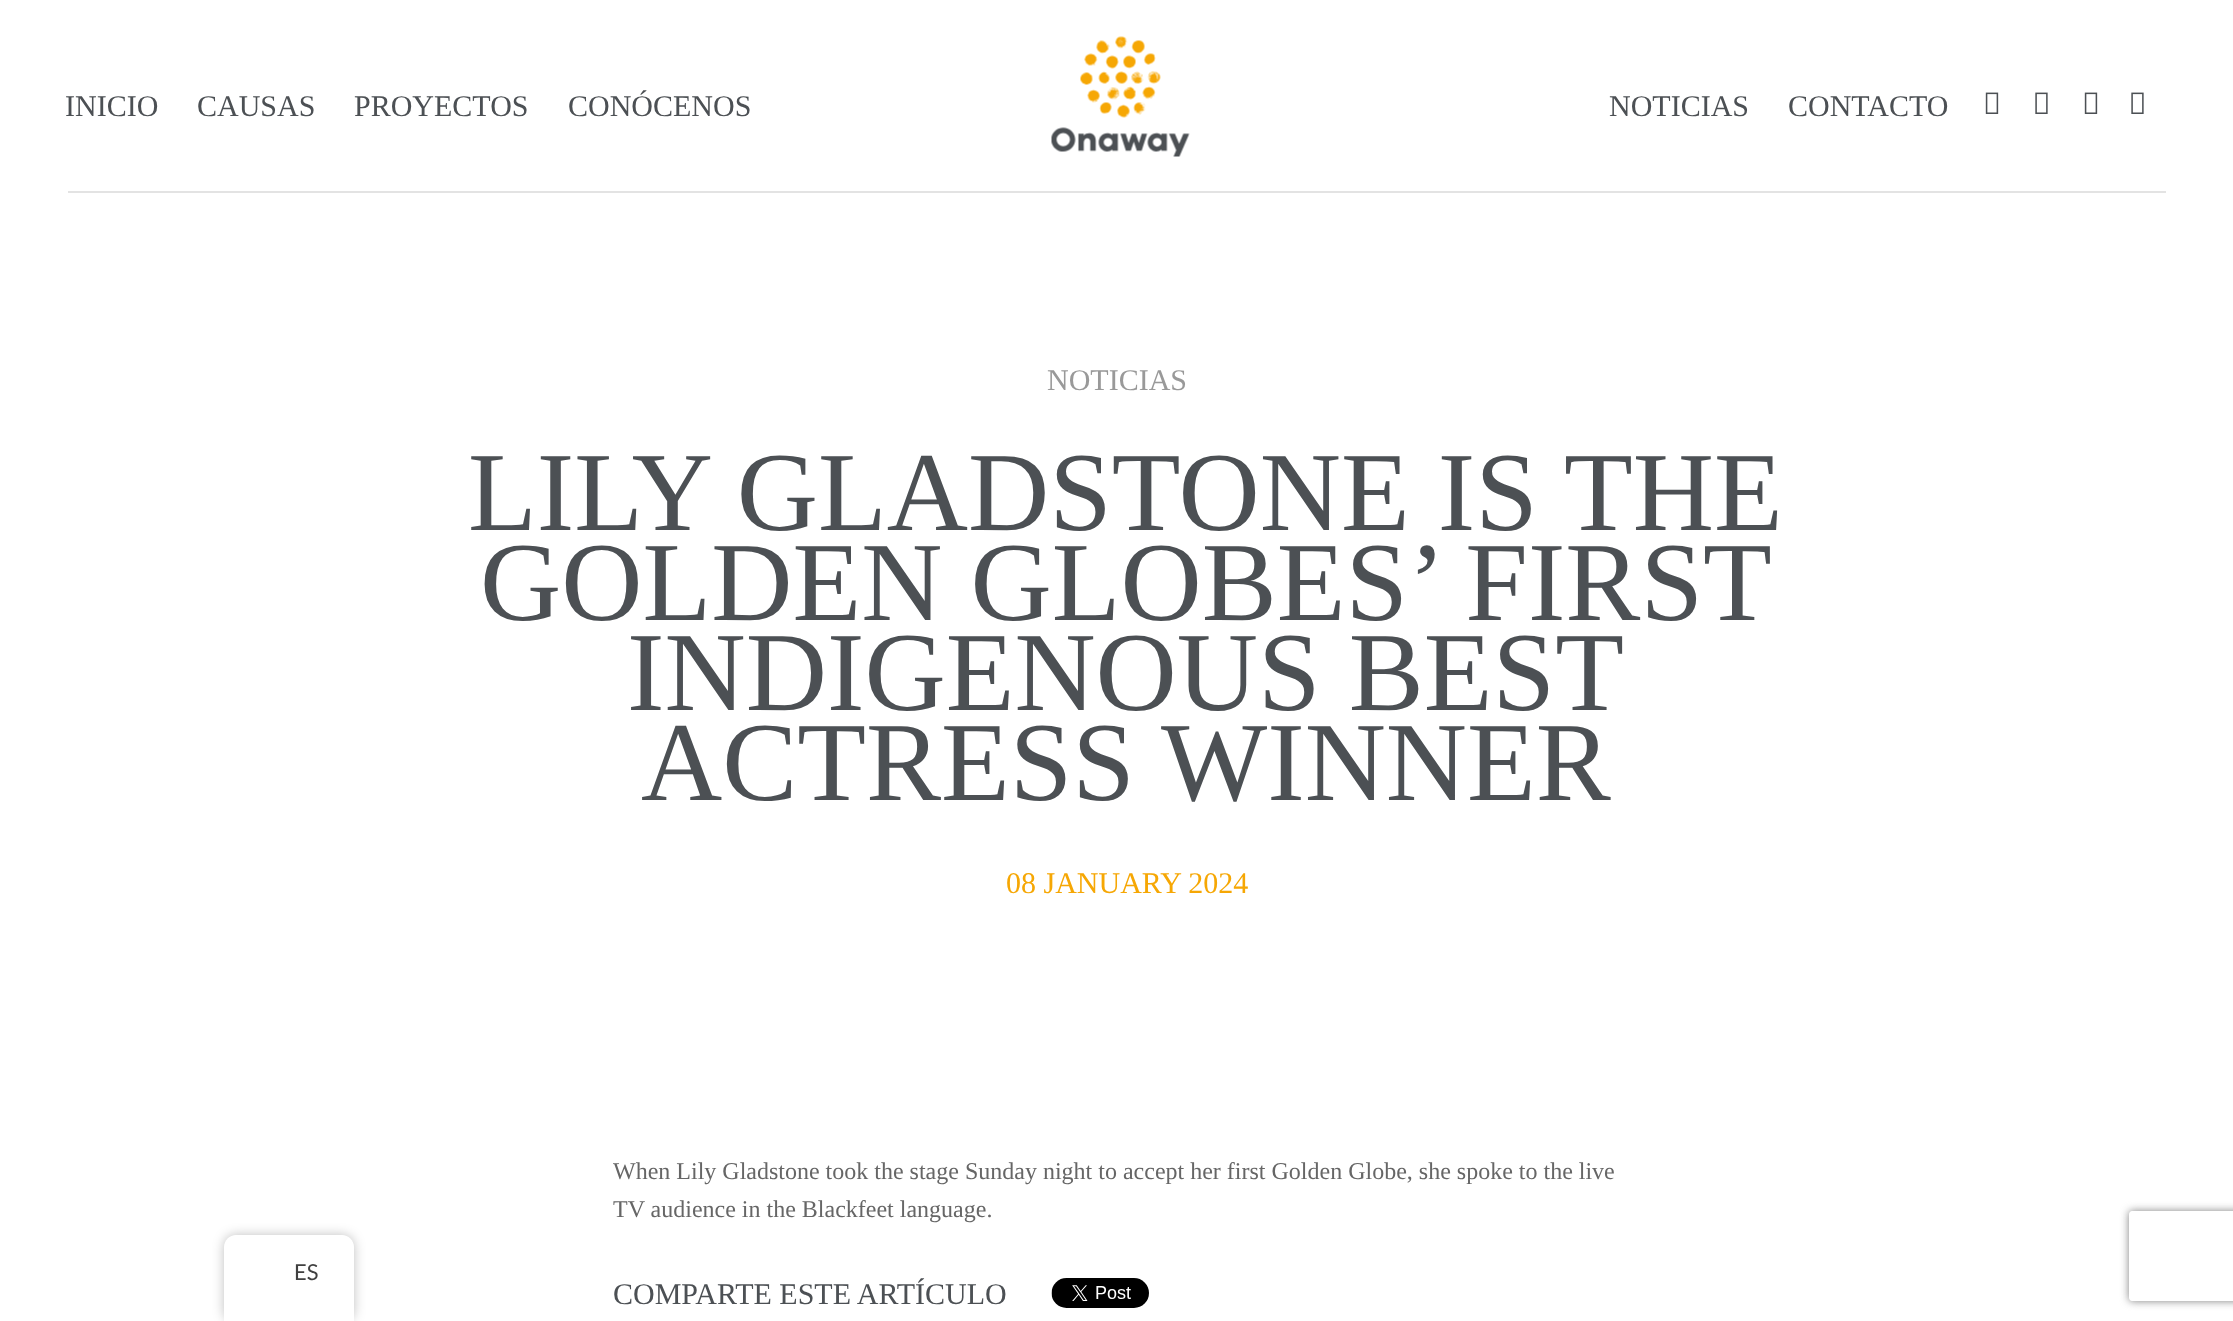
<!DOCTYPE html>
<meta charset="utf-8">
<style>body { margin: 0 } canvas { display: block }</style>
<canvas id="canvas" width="2233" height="1321"></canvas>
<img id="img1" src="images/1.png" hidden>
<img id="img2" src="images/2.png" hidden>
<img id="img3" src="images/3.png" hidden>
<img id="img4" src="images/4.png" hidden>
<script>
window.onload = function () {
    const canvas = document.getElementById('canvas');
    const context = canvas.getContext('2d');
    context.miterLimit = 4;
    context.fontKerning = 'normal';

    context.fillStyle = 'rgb(255, 255, 255)';
    context.fillRect(0, 0, 2233, 1321);
    context.drawImage(document.getElementById('img1'), 1051, 36, 139, 121);
    context.drawImage(document.getElementById('img2'), 1985, 92, 14, 22);
    context.drawImage(document.getElementById('img3'), 2035, 92, 13, 22);
    context.drawImage(document.getElementById('img2'), 2084, 92, 14, 22);
    context.drawImage(document.getElementById('img3'), 2131, 92, 13, 22);
    context.fillStyle = 'rgba(0, 0, 0, 0.25)';
    context.filter = 'blur(6px)';
    context.beginPath();
    context.roundRect(224, 1235, 130, 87, 12);
    context.fill();
    context.filter = 'none';
    context.fillStyle = 'rgb(255, 255, 255)';
    context.beginPath();
    context.moveTo(236, 1235);
    context.lineTo(342, 1235);
    context.bezierCurveTo(348.5, 1235, 354, 1240.5, 354, 1247);
    context.lineTo(354, 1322);
    context.lineTo(224, 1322);
    context.lineTo(224, 1247);
    context.bezierCurveTo(224, 1240.5, 229.5, 1235, 236, 1235);
    context.closePath();
    context.fill();
    context.fillStyle = 'rgb(227, 227, 227)';
    context.fillRect(68, 191, 2098, 2);
    context.drawImage(document.getElementById('img4'), 1051, 1278, 98, 30);
    context.save();
    context.beginPath();
    context.moveTo(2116, 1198);
    context.lineTo(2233, 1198);
    context.lineTo(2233, 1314);
    context.lineTo(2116, 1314);
    context.closePath();
    context.moveTo(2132, 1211);
    context.lineTo(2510, 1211);
    context.bezierCurveTo(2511.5, 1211, 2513, 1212.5, 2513, 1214);
    context.lineTo(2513, 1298);
    context.bezierCurveTo(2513, 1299.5, 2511.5, 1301, 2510, 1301);
    context.lineTo(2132, 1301);
    context.bezierCurveTo(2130.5, 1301, 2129, 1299.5, 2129, 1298);
    context.lineTo(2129, 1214);
    context.bezierCurveTo(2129, 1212.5, 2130.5, 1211, 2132, 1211);
    context.closePath();
    context.clip('evenodd');
    context.fillStyle = 'rgb(128, 128, 128)';
    context.filter = 'blur(4px)';
    context.beginPath();
    context.roundRect(2129, 1211, 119, 90, 3);
    context.fill();
    context.filter = 'none';
    context.restore();
    context.font = '30px Liberation Serif';
    context.fillStyle = 'rgb(76, 80, 84)';
    context.fillText('INICIO', 65, 116);
    context.fillText('CAUSAS', 197, 116);
    context.fillText('PROYECTOS', 354, 116);
    context.fillText('CONÓCENOS', 568, 116);
    context.fillText('NOTICIAS', 1609, 116);
    context.fillText('CONTACTO', 1788, 116);
    context.font = '22px Lato';
    context.fillStyle = 'rgb(64, 64, 64)';
    context.fillText('ES', 294, 1280);
    context.font = '30px Liberation Serif';
    context.fillStyle = 'rgb(153, 153, 153)';
    context.fillText('NOTICIAS', 1047, 390);
    context.font = '112.5px Liberation Serif';
    context.fillStyle = 'rgb(76, 80, 84)';
    context.fillText('LILY GLADSTONE IS THE', 468, 530);
    context.fillText('GOLDEN GLOBES’ FIRST', 480, 620);
    context.fillText('INDIGENOUS BEST', 627, 710);
    context.fillText('ACTRESS WINNER', 641, 800);
    context.font = '30px Liberation Serif';
    context.fillStyle = 'rgb(246, 167, 4)';
    context.fillText('08 JANUARY 2024', 1006, 893);
    context.font = '24px Liberation Serif';
    context.fillStyle = 'rgb(102, 102, 102)';
    context.fillText('When Lily Gladstone took the stage Sunday night to accept her first Golden Globe, she spoke to the live', 613, 1179);
    context.fillText('TV audience in the Blackfeet language.', 613, 1217);
    context.font = '30px Liberation Serif';
    context.fillStyle = 'rgb(76, 80, 84)';
    context.fillText('COMPARTE ESTE ARTÍCULO', 613, 1304);
};
</script>
